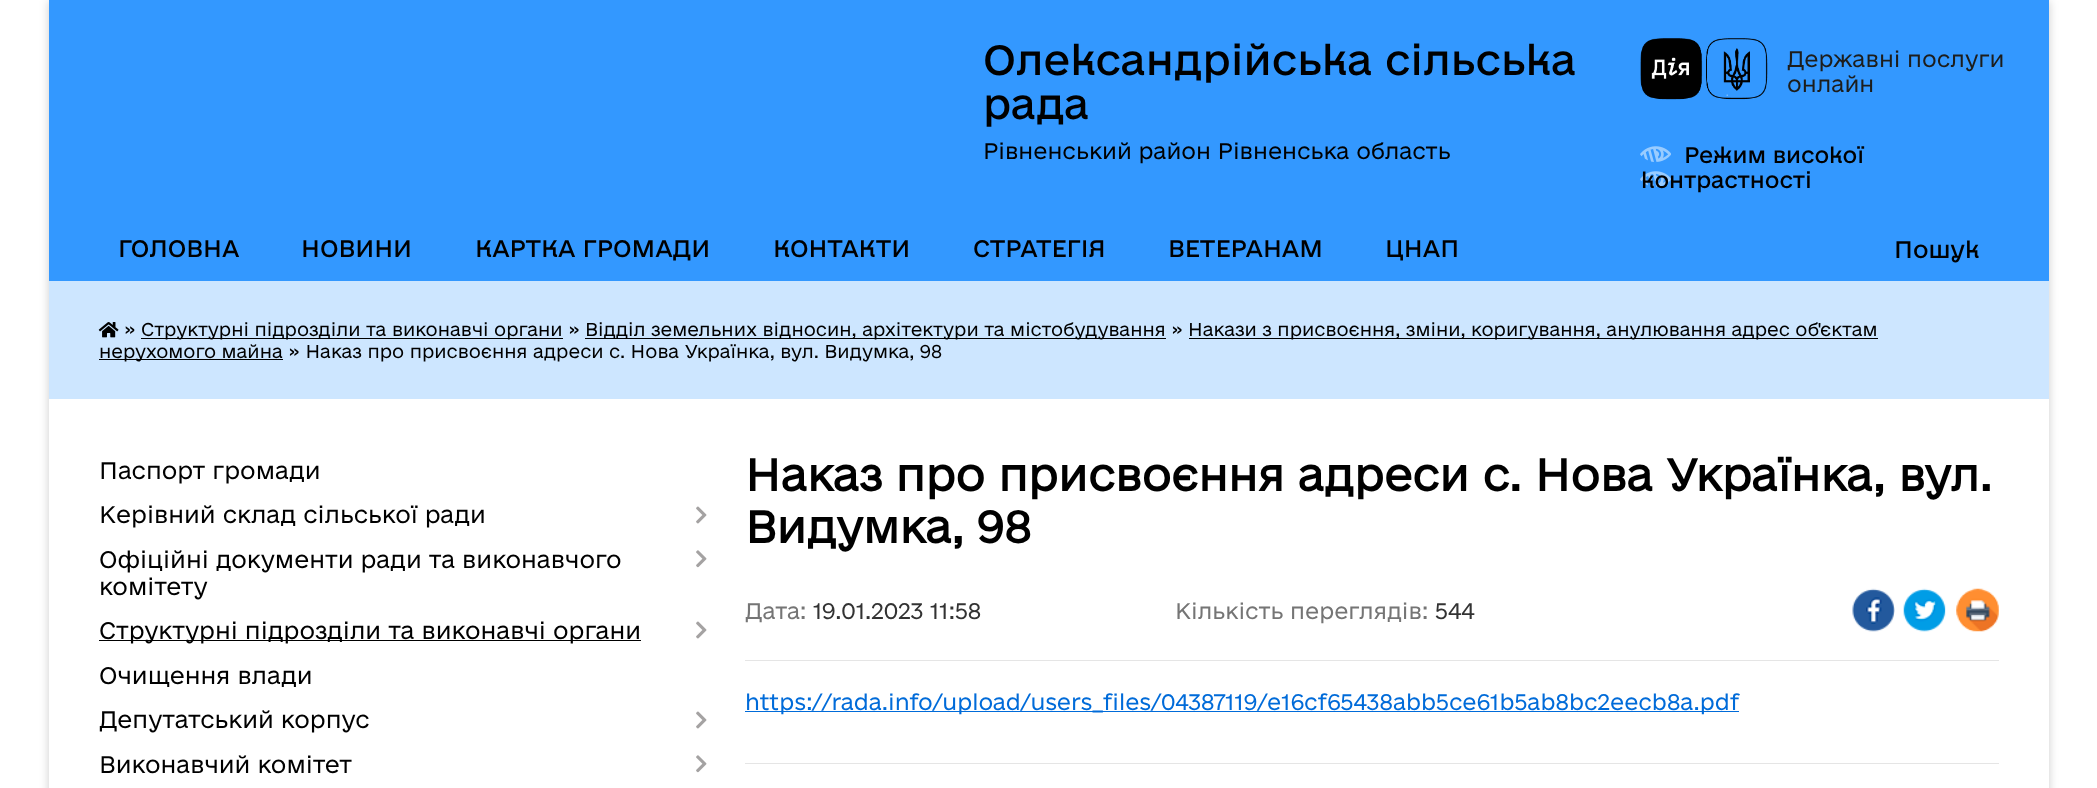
<!DOCTYPE html>
<meta charset="utf-8">
<style>body { margin: 0 } canvas { display: block }</style>
<canvas id="canvas" width="2097" height="788"></canvas>
<img id="img1" src="images/1.png" hidden>
<img id="img2" src="images/2.png" hidden>
<img id="img3" src="images/3.png" hidden>
<img id="img4" src="images/4.png" hidden>
<img id="img5" src="images/5.png" hidden>
<img id="img6" src="images/6.png" hidden>
<img id="img7" src="images/7.png" hidden>
<img id="img8" src="images/8.png" hidden>
<script>
window.onload = function () {
    const canvas = document.getElementById('canvas');
    const context = canvas.getContext('2d');
    context.miterLimit = 4;
    context.fontKerning = 'normal';

    context.fillStyle = 'rgb(255, 255, 255)';
    context.fillRect(0, 0, 2097, 788);
    context.fillStyle = 'rgba(0, 0, 0, 0.2)';
    context.filter = 'blur(5px)';
    context.beginPath();
    context.rect(49, 1, 2000, 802);
    context.fill();
    context.filter = 'none';
    context.fillStyle = 'rgb(255, 255, 255)';
    context.fillRect(49, 399, 2000, 389);
    context.fillStyle = 'rgb(51, 152, 255)';
    context.fillRect(49, 0, 2000, 281);
    context.drawImage(document.getElementById('img1'), 1640, 38, 128, 62);
    context.drawImage(document.getElementById('img2'), 1640, 146, 31, 41);
    context.fillStyle = 'rgb(205, 230, 255)';
    context.fillRect(49, 281, 2000, 118);
    context.drawImage(document.getElementById('img3'), 98, 322, 21, 16);
    context.fillStyle = 'rgb(0, 0, 0)';
    context.fillRect(141, 338, 422, 1);
    context.fillRect(585, 338, 581, 1);
    context.fillRect(1189, 338, 689, 1);
    context.fillRect(99, 359, 184, 1);
    context.drawImage(document.getElementById('img4'), 696, 506, 11, 18);
    context.drawImage(document.getElementById('img5'), 696, 550, 11, 18);
    context.fillRect(99, 640, 542, 1);
    context.drawImage(document.getElementById('img4'), 696, 621, 11, 18);
    context.drawImage(document.getElementById('img4'), 696, 711, 11, 18);
    context.drawImage(document.getElementById('img5'), 696, 755, 11, 18);
    context.drawImage(document.getElementById('img6'), 1852, 588, 43, 44);
    context.drawImage(document.getElementById('img7'), 1903, 588, 43, 44);
    context.drawImage(document.getElementById('img8'), 1956, 588, 43, 44);
    context.fillStyle = 'rgb(229, 229, 229)';
    context.fillRect(745, 660, 1254, 1);
    context.fillStyle = 'rgb(0, 107, 217)';
    context.fillRect(745, 711, 994, 1);
    context.fillStyle = 'rgb(229, 229, 229)';
    context.fillRect(745, 763, 1254, 1);
    context.font = '40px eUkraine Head';
    context.fillStyle = 'rgb(0, 0, 0)';
    context.fillText('Олександрійська сільська', 983, 75);
    context.fillText('рада', 983, 119);
    context.font = '300 21.25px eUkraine';
    context.fillText('Рівненський район Рівненська область', 983, 159);
    context.fillStyle = 'rgb(29, 29, 27)';
    context.fillText('Державні послуги', 1787, 67);
    context.fillText('онлайн', 1787, 92);
    context.font = '21.25px eUkraine Head';
    context.fillStyle = 'rgb(0, 0, 0)';
    context.fillText('Режим високої', 1684, 163);
    context.fillText('контрастності', 1641, 188);
    context.font = '22.5px eUkraine Head';
    context.fillText('ГОЛОВНА', 118, 257);
    context.fillText('НОВИНИ', 301, 257);
    context.fillText('КАРТКА ГРОМАДИ', 475, 257);
    context.fillText('КОНТАКТИ', 773, 257);
    context.fillText('СТРАТЕГІЯ', 973, 257);
    context.fillText('ВЕТЕРАНАМ', 1168, 257);
    context.fillText('ЦНАП', 1385, 257);
    context.fillText('Пошук', 1894, 258);
    context.font = '300 17.5px eUkraine';
    context.fillText('»', 124, 336);
    context.fillText('Структурні підрозділи та виконавчі органи »', 141, 336);
    context.fillText('Відділ земельних відносин, архітектури та містобудування »', 585, 336);
    context.fillText('Накази з присвоєння, зміни, коригування, анулювання адрес об\'єктам', 1188, 336);
    context.fillText('нерухомого майна » Наказ про присвоєння адреси с. Нова Українка, вул. Видумка, 98', 99, 358);
    context.font = '300 22.5px eUkraine';
    context.fillText('Паспорт громади', 99, 479);
    context.fillText('Керівний склад сільської ради', 99, 523);
    context.fillText('Офіційні документи ради та виконавчого', 99, 568);
    context.fillText('комітету', 99, 595);
    context.fillText('Структурні підрозділи та виконавчі органи', 99, 639);
    context.fillText('Очищення влади', 99, 684);
    context.fillText('Депутатський корпус', 99, 728);
    context.fillText('Виконавчий комітет', 99, 773);
    context.font = 'bold 42.5px eUkraine';
    context.fillText('Наказ про присвоєння адреси с. Нова Українка, вул.', 745, 491);
    context.fillText('Видумка, 98', 745, 543);
    context.font = '300 21.25px eUkraine';
    context.fillStyle = 'rgb(117, 117, 117)';
    context.fillText('Дата:', 745, 619);
    context.fillStyle = 'rgb(51, 51, 51)';
    context.fillText('19.01.2023 11:58', 813, 619);
    context.fillStyle = 'rgb(117, 117, 117)';
    context.fillText('Кількість переглядів:', 1175, 619);
    context.fillStyle = 'rgb(51, 51, 51)';
    context.fillText('544', 1435, 619);
    context.fillStyle = 'rgb(0, 107, 217)';
    context.fillText('https://rada.info/upload/users_files/04387119/e16cf65438abb5ce61b5ab8bc2eecb8a.pdf', 745, 710);
};
</script>
